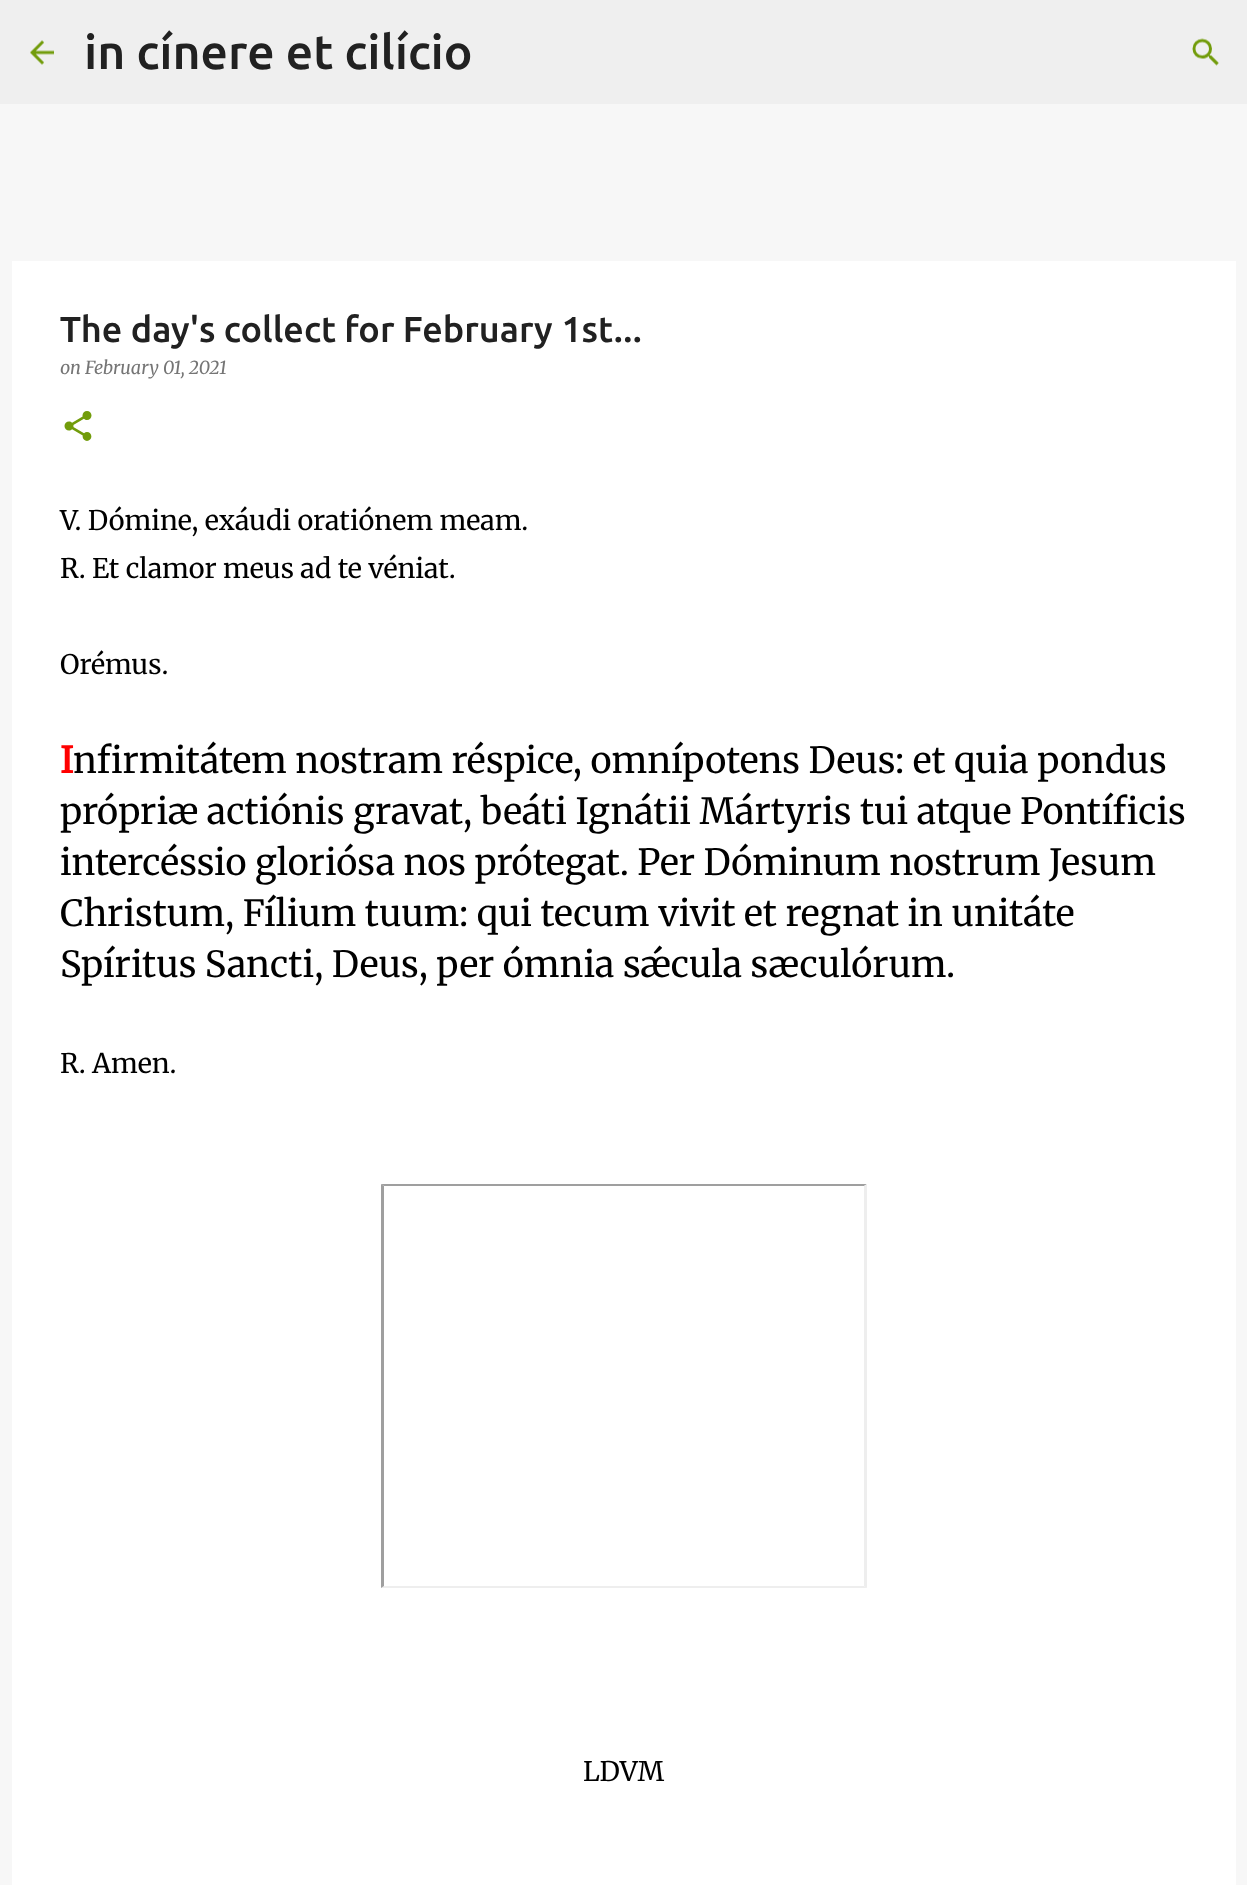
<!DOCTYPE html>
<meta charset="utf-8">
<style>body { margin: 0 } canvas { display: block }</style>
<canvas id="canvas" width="1247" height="1885"></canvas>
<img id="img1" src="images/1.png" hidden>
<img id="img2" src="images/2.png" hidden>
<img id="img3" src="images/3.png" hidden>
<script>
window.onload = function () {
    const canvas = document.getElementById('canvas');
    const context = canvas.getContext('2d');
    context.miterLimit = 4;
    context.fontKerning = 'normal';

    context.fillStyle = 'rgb(247, 247, 247)';
    context.fillRect(0, 0, 1247, 1885);
    context.fillStyle = 'rgb(239, 239, 239)';
    context.fillRect(0, 0, 1247, 104);
    context.drawImage(document.getElementById('img1'), 30, 40, 24, 25);
    context.drawImage(document.getElementById('img2'), 1192, 38, 27, 28);
    context.fillStyle = 'rgb(255, 255, 255)';
    context.fillRect(12, 261, 1224, 1624);
    context.drawImage(document.getElementById('img3'), 64, 411, 28, 30);
    context.fillStyle = 'rgb(159, 159, 159)';
    context.beginPath();
    context.moveTo(381, 1184);
    context.lineTo(867, 1184);
    context.lineTo(864, 1186);
    context.lineTo(384, 1186);
    context.closePath();
    context.fill();
    context.fillStyle = 'rgb(238, 238, 238)';
    context.beginPath();
    context.moveTo(867, 1184);
    context.lineTo(867, 1588);
    context.lineTo(864, 1586);
    context.lineTo(864, 1186);
    context.closePath();
    context.fill();
    context.beginPath();
    context.moveTo(867, 1588);
    context.lineTo(381, 1588);
    context.lineTo(384, 1586);
    context.lineTo(864, 1586);
    context.closePath();
    context.fill();
    context.fillStyle = 'rgb(159, 159, 159)';
    context.beginPath();
    context.moveTo(381, 1588);
    context.lineTo(381, 1184);
    context.lineTo(384, 1186);
    context.lineTo(384, 1586);
    context.closePath();
    context.fill();
    context.font = '500 48px Ubuntu';
    context.fillStyle = 'rgb(33, 33, 33)';
    context.fillText('in cínere et cilício', 84, 69);
    context.font = '500 36px Ubuntu';
    context.fillText('The day\'s collect for February 1st...', 60, 342);
    context.font = 'italic 18px Merriweather';
    context.fillStyle = 'rgb(117, 117, 117)';
    context.fillText('on February 01, 2021', 60, 374);
    context.font = '300 27px Merriweather';
    context.fillStyle = 'rgb(0, 0, 0)';
    context.fillText('V. Dómine, exáudi oratiónem meam.', 60, 530);
    context.fillText('R. Et clamor meus ad te véniat.', 60, 578);
    context.fillText('Orémus.', 60, 674);
    context.font = 'bold 36px Merriweather';
    context.fillStyle = 'rgb(255, 0, 0)';
    context.fillText('I', 60, 773);
    context.font = '300 36px Merriweather';
    context.fillStyle = 'rgb(0, 0, 0)';
    context.fillText('nfirmitátem nostram réspice, omnípotens Deus: et quia pondus', 73, 773);
    context.fillText('própriæ actiónis gravat, beáti Ignátii Mártyris tui atque Pontíficis', 60, 824);
    context.fillText('intercéssio gloriósa nos prótegat. Per Dóminum nostrum Jesum', 60, 875);
    context.fillText('Christum, Fílium tuum: qui tecum vivit et regnat in unitáte', 60, 926);
    context.fillText('Spíritus Sancti, Deus, per ómnia sǽcula sæculórum.', 60, 977);
    context.font = '300 27px Merriweather';
    context.fillText('R. Amen.', 60, 1073);
    context.fillText('LDVM', 583, 1781);
};
</script>
